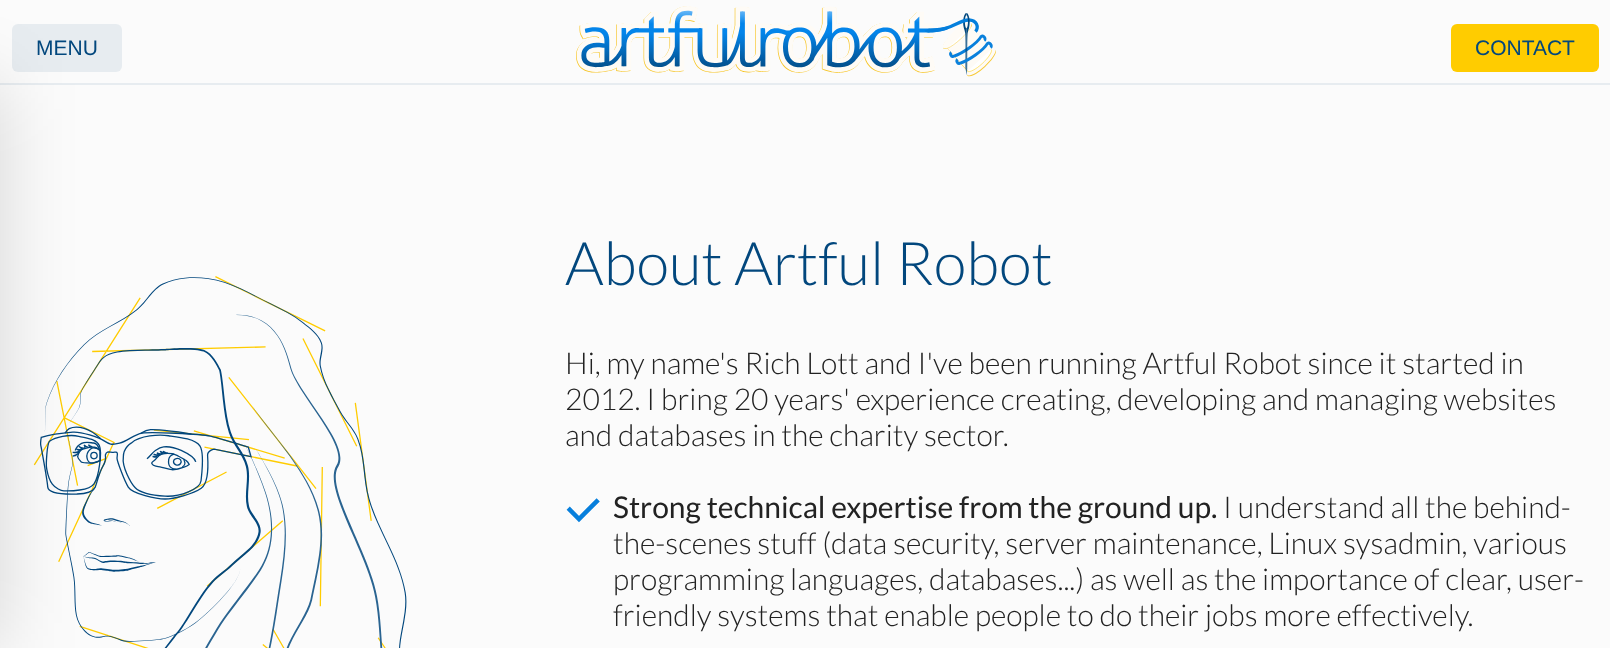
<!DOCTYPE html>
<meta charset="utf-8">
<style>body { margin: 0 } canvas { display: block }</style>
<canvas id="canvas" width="1610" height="648"></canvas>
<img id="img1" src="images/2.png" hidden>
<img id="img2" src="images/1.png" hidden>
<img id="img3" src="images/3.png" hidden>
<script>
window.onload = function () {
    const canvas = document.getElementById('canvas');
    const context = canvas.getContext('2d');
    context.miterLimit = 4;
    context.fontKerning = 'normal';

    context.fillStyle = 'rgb(251, 251, 251)';
    context.fillRect(0, 0, 1610, 648);
    context.fillStyle = 'rgb(231, 236, 240)';
    context.fillRect(0, 83, 1610, 2);
    context.beginPath();
    context.roundRect(12, 24, 110, 48, 6);
    context.fill();
    context.drawImage(document.getElementById('img1'), 33, 276, 374, 372);
    context.fillStyle = 'rgba(0, 0, 0, 0.15)';
    context.filter = 'blur(37.5px)';
    context.beginPath();
    context.rect(-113, 84, 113, 564);
    context.fill();
    context.filter = 'none';
    context.drawImage(document.getElementById('img2'), 576, 6, 420, 71);
    context.fillStyle = 'rgb(255, 204, 0)';
    context.beginPath();
    context.roundRect(1451, 24, 148, 48, 6);
    context.fill();
    context.drawImage(document.getElementById('img3'), 566, 498, 34, 25);
    context.font = '21px Liberation Sans';
    context.fillStyle = 'rgb(2, 71, 125)';
    context.fillText('MENU', 36, 55);
    context.fillText('CONTACT', 1475, 55);
    context.font = '300 60px Lato';
    context.fillText('About Artful Robot', 565, 285);
    context.font = '300 30px Lato';
    context.fillStyle = 'rgb(34, 34, 34)';
    context.fillText('Hi, my name\'s Rich Lott and I\'ve been running Artful Robot since it started in', 565, 374);
    context.fillText('2012. I bring 20 years\' experience creating, developing and managing websites', 565, 410);
    context.fillText('and databases in the charity sector.', 565, 446);
    context.font = '30px Lato';
    context.fillText('Strong technical expertise from the ground up.', 613, 518);
    context.font = '300 30px Lato';
    context.fillText('I understand all the behind-', 1223, 518);
    context.fillText('the-scenes stuff (data security, server maintenance, Linux sysadmin, various', 613, 554);
    context.fillText('programming languages, databases...) as well as the importance of clear, user-', 613, 590);
    context.fillText('friendly systems that enable people to do their jobs more effectively.', 613, 626);
};
</script>
